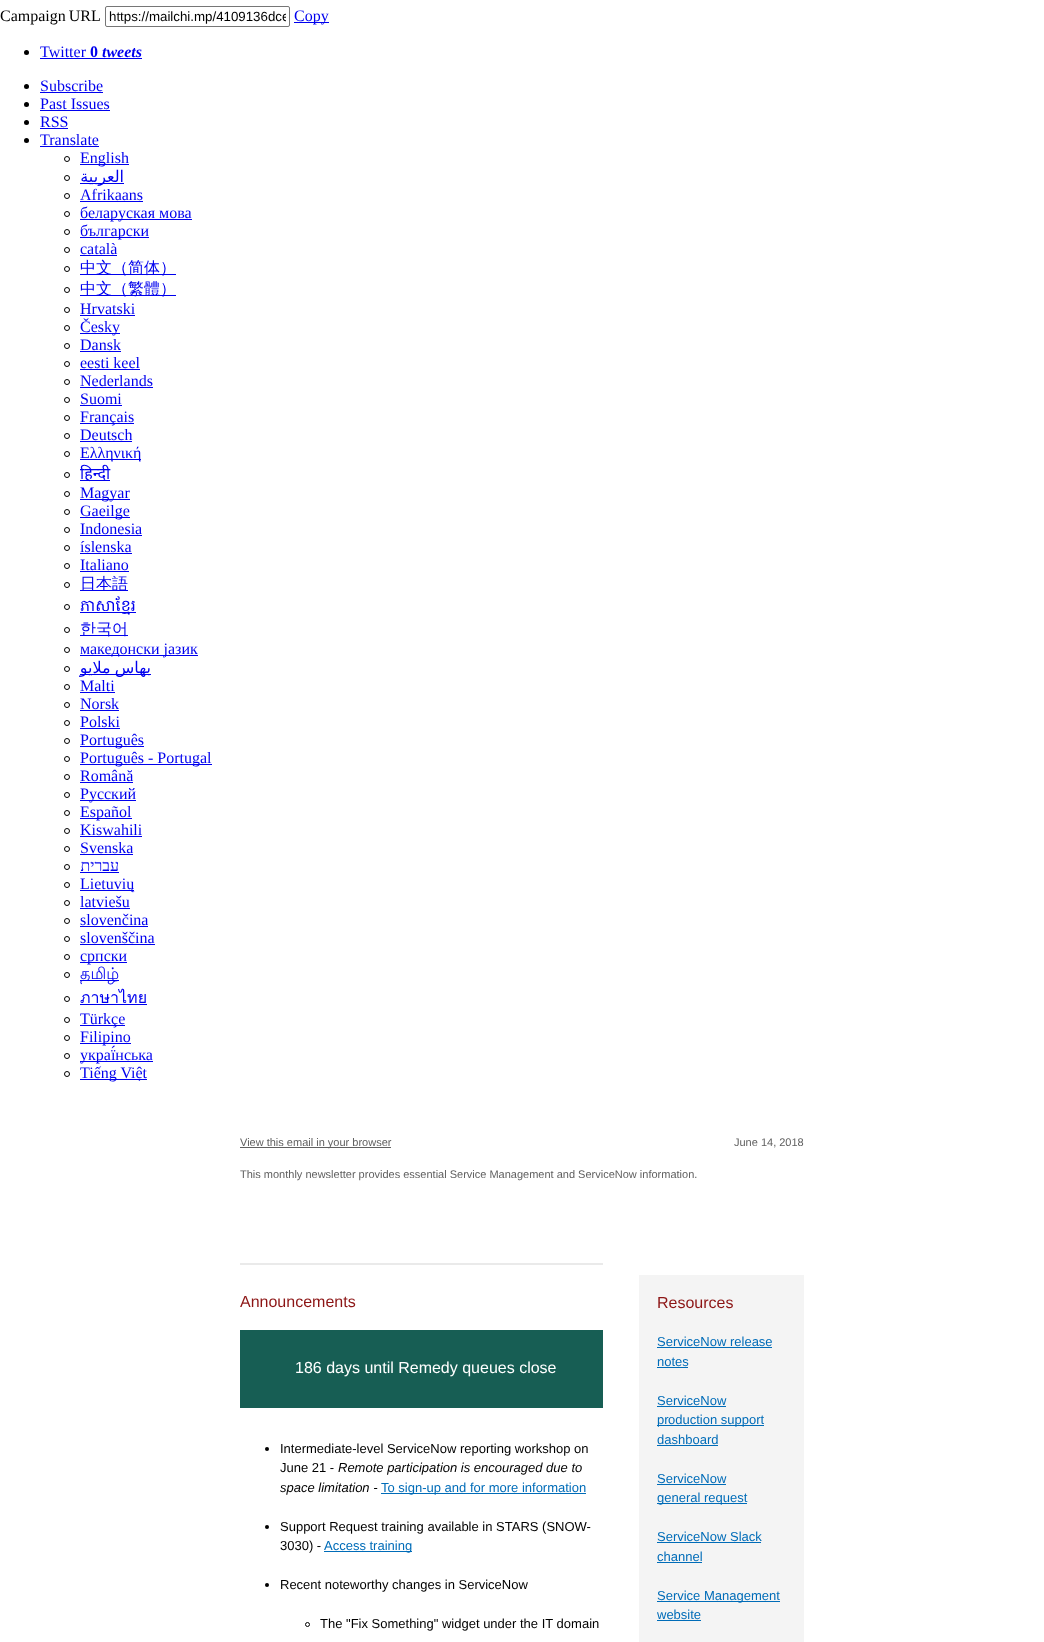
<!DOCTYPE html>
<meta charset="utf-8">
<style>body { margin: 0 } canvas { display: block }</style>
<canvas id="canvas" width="1044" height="1642"></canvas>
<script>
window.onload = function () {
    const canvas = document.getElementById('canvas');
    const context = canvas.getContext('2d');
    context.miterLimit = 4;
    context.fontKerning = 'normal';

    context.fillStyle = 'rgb(255, 255, 255)';
    context.fillRect(0, 0, 1044, 1642);
    context.beginPath();
    context.roundRect(105.5, 6.5, 184, 20, 1.5);
    context.strokeStyle = 'rgb(118, 118, 118)';
    context.stroke();
    context.fillStyle = 'rgb(0, 0, 238)';
    context.fillRect(294, 22, 35, 1);
    context.fillStyle = 'rgb(0, 0, 0)';
    context.beginPath();
    context.arc(26.5, 52.5, 2.5, 0, 2 * Math.PI);
    context.fill();
    context.fillStyle = 'rgb(0, 0, 238)';
    context.fillRect(40, 58, 102, 1);
    context.fillStyle = 'rgb(0, 0, 0)';
    context.beginPath();
    context.arc(26.5, 86.5, 2.5, 0, 2 * Math.PI);
    context.fill();
    context.fillStyle = 'rgb(0, 0, 238)';
    context.fillRect(40, 92, 63, 1);
    context.fillStyle = 'rgb(0, 0, 0)';
    context.beginPath();
    context.arc(26.5, 104.5, 2.5, 0, 2 * Math.PI);
    context.fill();
    context.fillStyle = 'rgb(0, 0, 238)';
    context.fillRect(40, 110, 70, 1);
    context.fillStyle = 'rgb(0, 0, 0)';
    context.beginPath();
    context.arc(26.5, 122.5, 2.5, 0, 2 * Math.PI);
    context.fill();
    context.fillStyle = 'rgb(0, 0, 238)';
    context.fillRect(40, 128, 28, 1);
    context.fillStyle = 'rgb(0, 0, 0)';
    context.beginPath();
    context.arc(26.5, 140.5, 2.5, 0, 2 * Math.PI);
    context.fill();
    context.fillStyle = 'rgb(0, 0, 238)';
    context.fillRect(40, 146, 59, 1);
    context.beginPath();
    context.arc(67, 159, 2.5, 0, 2 * Math.PI);
    context.strokeStyle = 'rgb(0, 0, 0)';
    context.stroke();
    context.fillRect(80, 164, 49, 1);
    context.beginPath();
    context.arc(67, 178, 2.5, 0, 2 * Math.PI);
    context.stroke();
    context.fillRect(80, 183, 44, 1);
    context.beginPath();
    context.arc(67, 196, 2.5, 0, 2 * Math.PI);
    context.stroke();
    context.fillRect(80, 201, 63, 1);
    context.beginPath();
    context.arc(67, 214, 2.5, 0, 2 * Math.PI);
    context.stroke();
    context.fillRect(80, 219, 112, 1);
    context.beginPath();
    context.arc(67, 232, 2.5, 0, 2 * Math.PI);
    context.stroke();
    context.fillRect(80, 237, 69, 1);
    context.beginPath();
    context.arc(67, 250, 2.5, 0, 2 * Math.PI);
    context.stroke();
    context.fillRect(80, 255, 37, 1);
    context.beginPath();
    context.arc(67, 269, 2.5, 0, 2 * Math.PI);
    context.stroke();
    context.fillRect(80, 274, 96, 1);
    context.beginPath();
    context.arc(67, 290, 2.5, 0, 2 * Math.PI);
    context.stroke();
    context.fillRect(80, 295, 96, 1);
    context.beginPath();
    context.arc(67, 310, 2.5, 0, 2 * Math.PI);
    context.stroke();
    context.fillRect(80, 315, 55, 1);
    context.beginPath();
    context.arc(67, 328, 2.5, 0, 2 * Math.PI);
    context.stroke();
    context.fillRect(80, 333, 40, 1);
    context.beginPath();
    context.arc(67, 346, 2.5, 0, 2 * Math.PI);
    context.stroke();
    context.fillRect(80, 351, 41, 1);
    context.beginPath();
    context.arc(67, 364, 2.5, 0, 2 * Math.PI);
    context.stroke();
    context.fillRect(80, 369, 60, 1);
    context.beginPath();
    context.arc(67, 382, 2.5, 0, 2 * Math.PI);
    context.stroke();
    context.fillRect(80, 387, 73, 1);
    context.beginPath();
    context.arc(67, 400, 2.5, 0, 2 * Math.PI);
    context.stroke();
    context.fillRect(80, 405, 42, 1);
    context.beginPath();
    context.arc(67, 418, 2.5, 0, 2 * Math.PI);
    context.stroke();
    context.fillRect(80, 423, 54, 1);
    context.beginPath();
    context.arc(67, 436, 2.5, 0, 2 * Math.PI);
    context.stroke();
    context.fillRect(80, 441, 52, 1);
    context.beginPath();
    context.arc(67, 454, 2.5, 0, 2 * Math.PI);
    context.stroke();
    context.fillRect(80, 459, 61, 1);
    context.beginPath();
    context.arc(67, 475, 2.5, 0, 2 * Math.PI);
    context.stroke();
    context.fillRect(80, 480, 30, 1);
    context.beginPath();
    context.arc(67, 494, 2.5, 0, 2 * Math.PI);
    context.stroke();
    context.fillRect(80, 499, 50, 1);
    context.beginPath();
    context.arc(67, 512, 2.5, 0, 2 * Math.PI);
    context.stroke();
    context.fillRect(80, 517, 50, 1);
    context.beginPath();
    context.arc(67, 530, 2.5, 0, 2 * Math.PI);
    context.stroke();
    context.fillRect(80, 535, 62, 1);
    context.beginPath();
    context.arc(67, 548, 2.5, 0, 2 * Math.PI);
    context.stroke();
    context.fillRect(80, 553, 52, 1);
    context.beginPath();
    context.arc(67, 566, 2.5, 0, 2 * Math.PI);
    context.stroke();
    context.fillRect(80, 571, 49, 1);
    context.beginPath();
    context.arc(67, 585, 2.5, 0, 2 * Math.PI);
    context.stroke();
    context.fillRect(80, 590, 48, 1);
    context.beginPath();
    context.arc(67, 607, 2.5, 0, 2 * Math.PI);
    context.stroke();
    context.fillRect(80, 612, 56, 1);
    context.beginPath();
    context.arc(67, 630, 2.5, 0, 2 * Math.PI);
    context.stroke();
    context.fillRect(80, 635, 48, 1);
    context.beginPath();
    context.arc(67, 650, 2.5, 0, 2 * Math.PI);
    context.stroke();
    context.fillRect(80, 655, 118, 1);
    context.beginPath();
    context.arc(67, 669, 2.5, 0, 2 * Math.PI);
    context.stroke();
    context.fillRect(80, 674, 71, 1);
    context.beginPath();
    context.arc(67, 687, 2.5, 0, 2 * Math.PI);
    context.stroke();
    context.fillRect(80, 692, 35, 1);
    context.beginPath();
    context.arc(67, 705, 2.5, 0, 2 * Math.PI);
    context.stroke();
    context.fillRect(80, 710, 39, 1);
    context.beginPath();
    context.arc(67, 723, 2.5, 0, 2 * Math.PI);
    context.stroke();
    context.fillRect(80, 728, 40, 1);
    context.beginPath();
    context.arc(67, 741, 2.5, 0, 2 * Math.PI);
    context.stroke();
    context.fillRect(80, 746, 64, 1);
    context.beginPath();
    context.arc(67, 759, 2.5, 0, 2 * Math.PI);
    context.stroke();
    context.fillRect(80, 764, 132, 1);
    context.beginPath();
    context.arc(67, 777, 2.5, 0, 2 * Math.PI);
    context.stroke();
    context.fillRect(80, 782, 53, 1);
    context.beginPath();
    context.arc(67, 795, 2.5, 0, 2 * Math.PI);
    context.stroke();
    context.fillRect(80, 800, 56, 1);
    context.beginPath();
    context.arc(67, 813, 2.5, 0, 2 * Math.PI);
    context.stroke();
    context.fillRect(80, 818, 52, 1);
    context.beginPath();
    context.arc(67, 831, 2.5, 0, 2 * Math.PI);
    context.stroke();
    context.fillRect(80, 836, 62, 1);
    context.beginPath();
    context.arc(67, 849, 2.5, 0, 2 * Math.PI);
    context.stroke();
    context.fillRect(80, 854, 53, 1);
    context.beginPath();
    context.arc(67, 867, 2.5, 0, 2 * Math.PI);
    context.stroke();
    context.fillRect(80, 872, 39, 1);
    context.beginPath();
    context.arc(67, 885, 2.5, 0, 2 * Math.PI);
    context.stroke();
    context.fillRect(80, 890, 54, 1);
    context.beginPath();
    context.arc(67, 903, 2.5, 0, 2 * Math.PI);
    context.stroke();
    context.fillRect(80, 908, 50, 1);
    context.beginPath();
    context.arc(67, 921, 2.5, 0, 2 * Math.PI);
    context.stroke();
    context.fillRect(80, 926, 68, 1);
    context.beginPath();
    context.arc(67, 939, 2.5, 0, 2 * Math.PI);
    context.stroke();
    context.fillRect(80, 944, 75, 1);
    context.beginPath();
    context.arc(67, 957, 2.5, 0, 2 * Math.PI);
    context.stroke();
    context.fillRect(80, 962, 47, 1);
    context.beginPath();
    context.arc(67, 975, 2.5, 0, 2 * Math.PI);
    context.stroke();
    context.fillRect(80, 980, 39, 1);
    context.beginPath();
    context.arc(67, 999, 2.5, 0, 2 * Math.PI);
    context.stroke();
    context.fillRect(80, 1004, 67, 1);
    context.beginPath();
    context.arc(67, 1020, 2.5, 0, 2 * Math.PI);
    context.stroke();
    context.fillRect(80, 1025, 45, 1);
    context.beginPath();
    context.arc(67, 1038, 2.5, 0, 2 * Math.PI);
    context.stroke();
    context.fillRect(80, 1043, 51, 1);
    context.beginPath();
    context.arc(67, 1056, 2.5, 0, 2 * Math.PI);
    context.stroke();
    context.fillRect(80, 1061, 73, 1);
    context.beginPath();
    context.arc(67, 1074, 2.5, 0, 2 * Math.PI);
    context.stroke();
    context.fillRect(80, 1079, 67, 1);
    context.fillStyle = 'rgb(96, 96, 96)';
    context.fillRect(240, 1147, 151, 1);
    context.fillStyle = 'rgb(234, 234, 234)';
    context.fillRect(240, 1263, 363, 2);
    context.fillStyle = 'rgb(23, 94, 84)';
    context.fillRect(240, 1330, 363, 78);
    context.fillStyle = 'rgb(0, 0, 0)';
    context.beginPath();
    context.arc(267, 1449, 2, 0, 2 * Math.PI);
    context.fill();
    context.fillStyle = 'rgb(0, 108, 184)';
    context.fillRect(381, 1493, 205, 1);
    context.fillStyle = 'rgb(0, 0, 0)';
    context.beginPath();
    context.arc(267, 1527, 2, 0, 2 * Math.PI);
    context.fill();
    context.fillStyle = 'rgb(0, 108, 184)';
    context.fillRect(324, 1551, 88, 1);
    context.fillStyle = 'rgb(0, 0, 0)';
    context.beginPath();
    context.arc(267, 1585, 2, 0, 2 * Math.PI);
    context.fill();
    context.beginPath();
    context.arc(307.5, 1624.5, 2, 0, 2 * Math.PI);
    context.stroke();
    context.fillStyle = 'rgb(244, 244, 244)';
    context.fillRect(639, 1275, 165, 367);
    context.fillStyle = 'rgb(0, 108, 184)';
    context.fillRect(657, 1347, 115, 1);
    context.fillRect(657, 1367, 31, 1);
    context.fillRect(657, 1406, 69, 1);
    context.fillRect(657, 1425, 11, 1);
    context.fillRect(668, 1425, 96, 1);
    context.fillRect(657, 1445, 61, 1);
    context.fillRect(657, 1484, 69, 1);
    context.fillRect(657, 1503, 90, 1);
    context.fillRect(657, 1542, 104, 1);
    context.fillRect(657, 1562, 45, 1);
    context.fillRect(657, 1601, 123, 1);
    context.fillRect(657, 1620, 44, 1);
    context.wordSpacing = '-1px';
    context.font = '16px Liberation Serif';
    context.fillStyle = 'rgb(0, 0, 0)';
    context.fillText('Campaign URL', 0, 21);
    context.save();
    context.beginPath();
    context.rect(109, 9, 177, 15);
    context.clip();
    context.wordSpacing = '0px';
    context.font = '13.3px Liberation Sans';
    context.fillText('https://mailchi.mp/4109136dce', 109, 21);
    context.restore();
    context.wordSpacing = '0px';
    context.fillStyle = 'rgb(0, 0, 238)';
    context.fillText('Copy', 294, 21);
    context.fillText('Twitter', 40, 57);
    context.font = 'bold 16px Liberation Serif';
    context.fillText('0', 90, 57);
    context.font = 'italic bold 16px Liberation Serif';
    context.fillText('tweets', 102, 57);
    context.font = '16px Liberation Serif';
    context.fillText('Subscribe', 40, 91);
    context.fillText('Past Issues', 40, 109);
    context.fillText('RSS', 40, 127);
    context.fillText('Translate', 40, 145);
    context.fillText('English', 80, 163);
    context.direction = 'rtl';
    context.font = '16px DejaVu Sans';
    context.fillText('العربية', 124, 182);
    context.direction = 'ltr';
    context.font = '16px Liberation Serif';
    context.fillText('Afrikaans', 80, 200);
    context.fillText('беларуская мова', 80, 218);
    context.fillText('български', 80, 236);
    context.fillText('català', 80, 254);
    context.font = '500 16px WenQuanYi Zen Hei';
    context.fillText('中文（简体）', 80, 273);
    context.fillText('中文（繁體）', 80, 294);
    context.font = '16px Liberation Serif';
    context.fillText('Hrvatski', 80, 314);
    context.fillText('Česky', 80, 332);
    context.fillText('Dansk', 80, 350);
    context.fillText('eesti keel', 80, 368);
    context.fillText('Nederlands', 80, 386);
    context.fillText('Suomi', 80, 404);
    context.fillText('Français', 80, 422);
    context.fillText('Deutsch', 80, 440);
    context.fillText('Ελληνική', 80, 458);
    context.font = '16px Noto Sans';
    context.fillText('हिन्दी', 80, 479);
    context.font = '16px Liberation Serif';
    context.fillText('Magyar', 80, 498);
    context.fillText('Gaeilge', 80, 516);
    context.fillText('Indonesia', 80, 534);
    context.fillText('íslenska', 80, 552);
    context.fillText('Italiano', 80, 570);
    context.font = '500 16px WenQuanYi Zen Hei';
    context.fillText('日本語', 80, 589);
    context.font = '16px Hanuman';
    context.fillText('ភាសាខ្មែរ', 80, 611);
    context.font = '500 16px WenQuanYi Zen Hei';
    context.fillText('한국어', 80, 634);
    context.font = '16px Liberation Serif';
    context.fillText('македонски јазик', 80, 654);
    context.wordSpacing = '-1px';
    context.direction = 'rtl';
    context.font = '16px DejaVu Sans';
    context.fillText('بهاس ملايو', 151, 673);
    context.wordSpacing = '0px';
    context.direction = 'ltr';
    context.font = '16px Liberation Serif';
    context.fillText('Malti', 80, 691);
    context.fillText('Norsk', 80, 709);
    context.fillText('Polski', 80, 727);
    context.fillText('Português', 80, 745);
    context.fillText('Português - Portugal', 80, 763);
    context.fillText('Română', 80, 781);
    context.fillText('Русский', 80, 799);
    context.fillText('Español', 80, 817);
    context.fillText('Kiswahili', 80, 835);
    context.fillText('Svenska', 80, 853);
    context.direction = 'rtl';
    context.fillText('עברית', 119, 871);
    context.direction = 'ltr';
    context.fillText('Lietuvių', 80, 889);
    context.fillText('latviešu', 80, 907);
    context.fillText('slovenčina', 80, 925);
    context.fillText('slovenščina', 80, 943);
    context.fillText('српски', 80, 961);
    context.font = '16px Lohit Tamil';
    context.fillText('தமிழ்', 80, 979);
    context.font = '16px Loma';
    context.fillText('ภาษาไทย', 80, 1003);
    context.font = '16px Liberation Serif';
    context.fillText('Türkçe', 80, 1024);
    context.fillText('Filipino', 80, 1042);
    context.fillText('украї́нська', 80, 1060);
    context.fillText('Tiếng Việt', 80, 1078);
    context.font = '11px Liberation Sans';
    context.fillStyle = 'rgb(96, 96, 96)';
    context.fillText('View this email in your browser', 240, 1146);
    context.fillText('June 14, 2018', 734, 1146);
    context.fillText('This monthly newsletter provides essential Service Management and ServiceNow information.', 240, 1178);
    context.font = '16px Liberation Sans';
    context.fillStyle = 'rgb(140, 21, 21)';
    context.fillText('Announcements', 240, 1307);
    context.fillStyle = 'rgb(255, 255, 255)';
    context.fillText('186 days until Remedy queues close', 295, 1373);
    context.font = '13px Liberation Sans';
    context.fillStyle = 'rgb(0, 0, 0)';
    context.fillText('Intermediate-level ServiceNow reporting workshop on', 280, 1453);
    context.fillText('June 21 -', 280, 1472);
    context.font = 'italic 13px Liberation Sans';
    context.fillText('Remote participation is encouraged due to', 338, 1472);
    context.fillText('space limitation -', 280, 1492);
    context.font = '13px Liberation Sans';
    context.fillStyle = 'rgb(0, 108, 184)';
    context.fillText('To sign-up and for more information', 381, 1492);
    context.fillStyle = 'rgb(0, 0, 0)';
    context.fillText('Support Request training available in STARS (SNOW-', 280, 1531);
    context.fillText('3030) -', 280, 1550);
    context.fillStyle = 'rgb(0, 108, 184)';
    context.fillText('Access training', 324, 1550);
    context.fillStyle = 'rgb(0, 0, 0)';
    context.fillText('Recent noteworthy changes in ServiceNow', 280, 1589);
    context.fillText('The "Fix Something" widget under the IT domain', 320, 1628);
    context.font = '16px Liberation Sans';
    context.fillStyle = 'rgb(140, 21, 21)';
    context.fillText('Resources', 657, 1308);
    context.font = '13px Liberation Sans';
    context.fillStyle = 'rgb(0, 108, 184)';
    context.fillText('ServiceNow release', 657, 1346);
    context.fillText('notes', 657, 1366);
    context.fillText('ServiceNow', 657, 1405);
    context.fillText('pr', 657, 1424);
    context.fillText('oduction support', 668, 1424);
    context.fillText('dashboard', 657, 1444);
    context.fillText('ServiceNow', 657, 1483);
    context.fillText('general request', 657, 1502);
    context.fillText('ServiceNow Slack', 657, 1541);
    context.fillText('channel', 657, 1561);
    context.fillText('Service Management', 657, 1600);
    context.fillText('website', 657, 1619);
};
</script>
